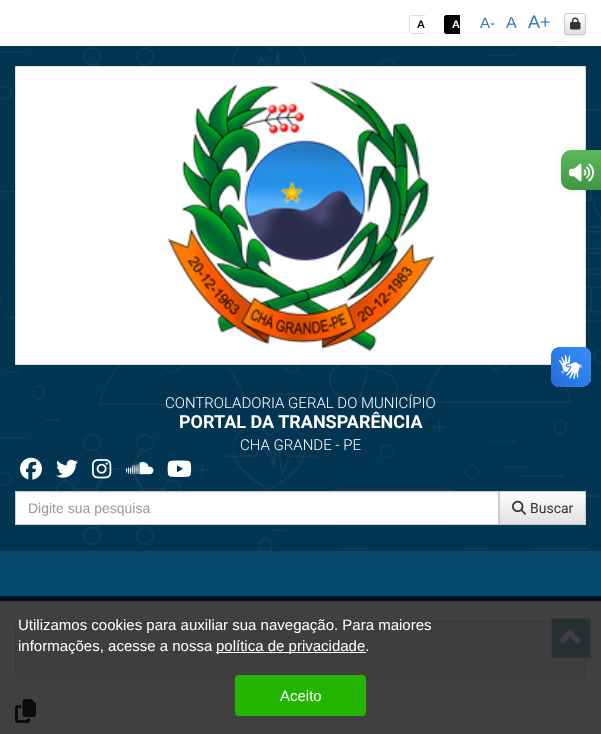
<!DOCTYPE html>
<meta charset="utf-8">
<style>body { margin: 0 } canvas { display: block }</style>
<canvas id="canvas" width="601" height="734"></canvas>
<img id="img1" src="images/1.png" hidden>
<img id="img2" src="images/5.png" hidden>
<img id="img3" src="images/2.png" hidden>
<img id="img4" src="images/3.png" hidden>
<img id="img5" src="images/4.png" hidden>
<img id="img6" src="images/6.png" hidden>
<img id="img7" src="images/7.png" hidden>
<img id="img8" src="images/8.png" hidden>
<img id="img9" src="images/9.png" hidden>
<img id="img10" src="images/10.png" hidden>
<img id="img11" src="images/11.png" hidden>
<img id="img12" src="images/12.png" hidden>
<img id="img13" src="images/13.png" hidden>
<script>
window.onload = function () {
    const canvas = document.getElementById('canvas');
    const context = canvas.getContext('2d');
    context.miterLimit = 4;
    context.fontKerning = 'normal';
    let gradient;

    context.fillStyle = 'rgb(255, 255, 255)';
    context.fillRect(0, 0, 601, 734);
    context.fillStyle = 'rgb(221, 221, 221)';
    context.beginPath();
    context.moveTo(412, 15);
    context.lineTo(425, 15);
    context.lineTo(425, 34);
    context.lineTo(412, 34);
    context.bezierCurveTo(410.5, 34, 409, 32.5, 409, 31);
    context.lineTo(409, 18);
    context.bezierCurveTo(409, 16.5, 410.5, 15, 412, 15);
    context.closePath();
    context.moveTo(412, 16);
    context.lineTo(425, 16);
    context.lineTo(425, 33);
    context.lineTo(412, 33);
    context.bezierCurveTo(411, 33, 410, 32, 410, 31);
    context.lineTo(410, 18);
    context.bezierCurveTo(410, 17, 411, 16, 412, 16);
    context.closePath();
    context.fill('evenodd');
    context.fillStyle = 'rgb(0, 0, 0)';
    context.beginPath();
    context.roundRect(444, 15, 16, 19, [3, 0, 0, 3]);
    context.fill();
    context.beginPath();
    context.moveTo(447, 15);
    context.lineTo(460, 15);
    context.lineTo(460, 34);
    context.lineTo(447, 34);
    context.bezierCurveTo(445.5, 34, 444, 32.5, 444, 31);
    context.lineTo(444, 18);
    context.bezierCurveTo(444, 16.5, 445.5, 15, 447, 15);
    context.closePath();
    context.moveTo(447, 16);
    context.lineTo(460, 16);
    context.lineTo(460, 33);
    context.lineTo(447, 33);
    context.bezierCurveTo(446, 33, 445, 32, 445, 31);
    context.lineTo(445, 18);
    context.bezierCurveTo(445, 17, 446, 16, 447, 16);
    context.closePath();
    context.fill('evenodd');
    context.fillStyle = 'rgba(0, 0, 0, 0.07)';
    context.filter = 'blur(0.5px)';
    context.beginPath();
    context.roundRect(564, 14, 22, 22, 3);
    context.fill();
    context.filter = 'none';
    context.save();
    context.beginPath();
    context.roundRect(564, 13, 22, 22, 3);
    context.clip();
    gradient = context.createLinearGradient(575, 14, 575, 34);
    gradient.addColorStop(0, 'rgb(255, 255, 255)');
    gradient.addColorStop(1, 'rgb(224, 224, 224)');
    context.fillStyle = gradient;
    context.fillRect(564, 14, 22, 20);
    context.restore();
    context.beginPath();
    context.roundRect(564.5, 13.5, 21, 21, 2.5);
    context.strokeStyle = 'rgb(204, 204, 204)';
    context.stroke();
    context.drawImage(document.getElementById('img1'), 570, 17, 11, 13);
    context.fillStyle = 'rgb(1, 53, 82)';
    context.fillRect(0, 46, 601, 505);
    context.drawImage(document.getElementById('img2'), 0, 46, 601, 505);
    context.fillStyle = 'rgb(255, 255, 255)';
    context.beginPath();
    context.rect(15.5, 66.5, 570, 298);
    context.fill();
    context.strokeStyle = 'rgb(221, 221, 221)';
    context.stroke();
    context.fillStyle = 'rgba(0, 0, 0, 0.05)';
    context.filter = 'blur(5px)';
    context.beginPath();
    context.roundRect(561, 150, 40, 40, 10);
    context.fill();
    context.filter = 'none';
    gradient = context.createLinearGradient(581, 150, 581, 190);
    gradient.addColorStop(0, 'rgb(92, 184, 92)');
    gradient.addColorStop(1, 'rgb(65, 150, 65)');
    context.fillStyle = gradient;
    context.beginPath();
    context.roundRect(561, 150, 40, 40, [10, 0, 0, 10]);
    context.fill();
    context.drawImage(document.getElementById('img3'), 569, 163, 25, 19);
    context.fillStyle = 'rgb(245, 245, 245)';
    context.beginPath();
    context.roundRect(15.5, 621.5, 570, 57, 3.5);
    context.fill();
    context.stroke();
    context.fillStyle = 'rgba(9, 113, 137, 0.4)';
    context.fillRect(551, 618, 40, 40);
    context.strokeStyle = 'rgba(255, 255, 255, 0.5)';
    context.strokeRect(551.5, 618.5, 39, 39);
    context.fillStyle = 'rgb(250, 250, 250)';
    context.beginPath();
    context.moveTo(581, 640);
    context.lineTo(577, 644);
    context.lineTo(570, 636.5);
    context.lineTo(563, 644);
    context.lineTo(559, 640);
    context.lineTo(570, 629);
    context.closePath();
    context.fill();
    context.drawImage(document.getElementById('img4'), 551, 347, 40, 40);
    context.drawImage(document.getElementById('img5'), 551, 347, 40, 40);
    context.drawImage(document.getElementById('img6'), 167, 81, 268, 271);
    context.drawImage(document.getElementById('img7'), 20, 457, 22, 23);
    context.drawImage(document.getElementById('img8'), 56, 459, 22, 19);
    context.drawImage(document.getElementById('img9'), 92, 459, 20, 20);
    context.drawImage(document.getElementById('img10'), 126, 461, 28, 14);
    context.drawImage(document.getElementById('img11'), 167, 460, 25, 17);
    context.fillStyle = 'rgb(255, 255, 255)';
    context.fillRect(16, 493, 482, 31);
    context.fillStyle = 'rgb(236, 236, 236)';
    context.fillRect(16, 492, 482, 1);
    context.strokeStyle = 'rgb(204, 204, 204)';
    context.strokeRect(15.5, 491.5, 483, 33);
    gradient = context.createLinearGradient(543, 492, 543, 524);
    gradient.addColorStop(0, 'rgb(255, 255, 255)');
    gradient.addColorStop(1, 'rgb(224, 224, 224)');
    context.fillStyle = gradient;
    context.fillRect(500, 492, 85, 32);
    context.strokeRect(499.5, 491.5, 86, 33);
    context.drawImage(document.getElementById('img12'), 512, 500, 14, 15);
    context.fillStyle = 'rgb(8, 74, 111)';
    context.fillRect(0, 551, 601, 50);
    context.drawImage(document.getElementById('img13'), 15, 699, 21, 24);
    context.fillStyle = 'rgba(0, 0, 0, 0.75)';
    context.fillRect(0, 596, 601, 138);
    context.fillStyle = 'rgb(255, 255, 255)';
    context.fillRect(216, 652, 150, 1);
    context.fillStyle = 'rgb(35, 181, 0)';
    context.beginPath();
    context.roundRect(235, 675, 131, 41, 4);
    context.fill();
    context.font = 'bold 11px Liberation Sans';
    context.fillStyle = 'rgb(0, 0, 0)';
    context.fillText('A', 417, 28);
    context.fillStyle = 'rgb(255, 255, 255)';
    context.fillText('A', 452, 28);
    context.font = '15px Liberation Sans';
    context.fillStyle = 'rgb(51, 122, 183)';
    context.fillText('A-', 480, 28);
    context.font = '16px Liberation Sans';
    context.fillText('A', 506, 28);
    context.font = '18px Liberation Sans';
    context.fillText('A+', 528, 28);
    context.font = '300 15px Roboto';
    context.fillStyle = 'rgb(255, 255, 255)';
    context.fillText('CONTROLADORIA GERAL DO MUNICÍPIO', 165, 408);
    context.font = 'bold 18px Roboto';
    context.fillText('PORTAL DA TRANSPARÊNCIA', 179, 428);
    context.font = '300 15px Roboto';
    context.fillText('CHA GRANDE - PE', 240, 450);
    context.font = '14px Liberation Sans';
    context.fillStyle = 'rgb(153, 153, 153)';
    context.fillText('Digite sua pesquisa', 28, 513);
    context.font = '14px Roboto';
    context.fillStyle = 'rgb(51, 51, 51)';
    context.fillText('Buscar', 530, 513);
    context.font = '15px Liberation Sans';
    context.fillStyle = 'rgb(255, 255, 255)';
    context.fillText('Utilizamos cookies para auxiliar sua navegação. Para maiores', 18, 630);
    context.fillText('informações, acesse a nossa', 18, 651);
    context.fillText('política de privacidade.', 216, 651);
    context.fillText('Aceito', 280, 701);
};
</script>
